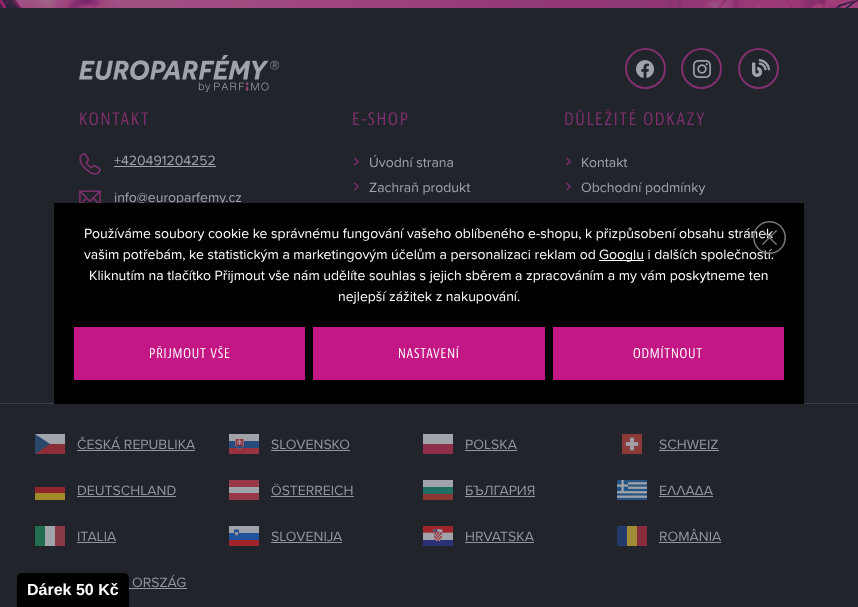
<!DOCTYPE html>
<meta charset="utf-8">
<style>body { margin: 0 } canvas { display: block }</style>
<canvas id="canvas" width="858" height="607"></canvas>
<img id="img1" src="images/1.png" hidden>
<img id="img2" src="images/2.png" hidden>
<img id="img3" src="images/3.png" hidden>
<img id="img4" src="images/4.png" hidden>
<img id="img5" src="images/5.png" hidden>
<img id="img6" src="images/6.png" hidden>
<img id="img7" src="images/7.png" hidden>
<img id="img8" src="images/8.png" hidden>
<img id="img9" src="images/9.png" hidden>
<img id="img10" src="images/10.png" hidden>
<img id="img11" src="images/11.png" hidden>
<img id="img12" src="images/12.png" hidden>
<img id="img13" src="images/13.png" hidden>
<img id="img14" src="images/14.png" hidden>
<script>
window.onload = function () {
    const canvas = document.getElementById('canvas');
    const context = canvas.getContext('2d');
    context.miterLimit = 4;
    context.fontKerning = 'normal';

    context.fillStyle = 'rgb(255, 255, 255)';
    context.fillRect(0, 0, 858, 607);
    context.drawImage(document.getElementById('img1'), 0, 0, 858, 8);
    context.fillStyle = 'rgb(33, 36, 43)';
    context.fillRect(0, 8, 858, 599);
    context.drawImage(document.getElementById('img2'), 79, 55, 200, 37);
    context.beginPath();
    context.arc(645.5, 68.5, 19.5, 0, 2 * Math.PI);
    context.strokeStyle = 'rgb(130, 48, 110)';
    context.lineWidth = 2;
    context.stroke();
    context.drawImage(document.getElementById('img3'), 636, 60, 18, 18);
    context.beginPath();
    context.arc(701.5, 68.5, 19.5, 0, 2 * Math.PI);
    context.stroke();
    context.drawImage(document.getElementById('img4'), 693, 60, 18, 18);
    context.beginPath();
    context.arc(758.5, 68.5, 19.5, 0, 2 * Math.PI);
    context.stroke();
    context.drawImage(document.getElementById('img5'), 752, 59, 18, 18);
    context.drawImage(document.getElementById('img6'), 79, 153, 22, 22);
    context.fillStyle = 'rgb(160, 164, 171)';
    context.fillRect(114, 166, 102, 1);
    context.drawImage(document.getElementById('img7'), 79, 190, 22, 13);
    context.drawImage(document.getElementById('img8'), 354, 157, 5, 9);
    context.drawImage(document.getElementById('img8'), 354, 182, 5, 9);
    context.drawImage(document.getElementById('img8'), 566, 157, 5, 9);
    context.drawImage(document.getElementById('img8'), 566, 182, 5, 9);
    context.fillStyle = 'rgb(57, 61, 71)';
    context.fillRect(0, 403, 858, 1);
    context.fillStyle = 'rgb(140, 46, 56)';
    context.fillRect(35, 444, 30, 10);
    context.fillStyle = 'rgb(160, 164, 171)';
    context.fillRect(35, 434, 30, 10);
    context.fillStyle = 'rgb(41, 71, 106)';
    context.beginPath();
    context.moveTo(50, 444);
    context.lineTo(35, 434);
    context.lineTo(35, 454);
    context.closePath();
    context.fill();
    context.fillStyle = 'rgb(147, 150, 157)';
    context.fillRect(77, 450, 118, 1);
    context.drawImage(document.getElementById('img9'), 229, 434, 30, 20);
    context.fillRect(271, 450, 79, 1);
    context.fillStyle = 'rgb(160, 164, 171)';
    context.fillRect(423, 434, 30, 10);
    context.fillStyle = 'rgb(143, 46, 73)';
    context.fillRect(423, 444, 30, 10);
    context.fillStyle = 'rgb(147, 150, 157)';
    context.fillRect(465, 450, 52, 1);
    context.drawImage(document.getElementById('img10'), 622, 434, 20, 20);
    context.fillRect(659, 450, 60, 1);
    context.fillStyle = 'rgb(143, 36, 43)';
    context.fillRect(35, 487, 30, 6);
    context.fillStyle = 'rgb(160, 139, 43)';
    context.fillRect(35, 493, 30, 7);
    context.fillStyle = 'rgb(147, 150, 157)';
    context.fillRect(77, 496, 99, 1);
    context.fillStyle = 'rgb(151, 57, 72)';
    context.fillRect(229, 480, 30, 7);
    context.fillStyle = 'rgb(160, 164, 171)';
    context.fillRect(229, 487, 30, 6);
    context.fillStyle = 'rgb(151, 57, 72)';
    context.fillRect(229, 493, 30, 7);
    context.fillStyle = 'rgb(147, 150, 157)';
    context.fillRect(271, 496, 83, 1);
    context.fillStyle = 'rgb(160, 164, 171)';
    context.fillRect(423, 480, 30, 7);
    context.fillStyle = 'rgb(33, 111, 98)';
    context.fillRect(423, 487, 30, 7);
    context.fillStyle = 'rgb(140, 55, 52)';
    context.fillRect(423, 494, 30, 6);
    context.fillStyle = 'rgb(147, 150, 157)';
    context.fillRect(465, 496, 70, 1);
    context.drawImage(document.getElementById('img11'), 617, 480, 30, 20);
    context.fillRect(659, 496, 54, 1);
    context.fillStyle = 'rgb(33, 109, 78)';
    context.fillRect(35, 526, 10, 20);
    context.fillStyle = 'rgb(160, 164, 171)';
    context.fillRect(45, 526, 10, 20);
    context.fillStyle = 'rgb(136, 58, 71)';
    context.fillRect(55, 526, 10, 20);
    context.fillStyle = 'rgb(147, 150, 157)';
    context.fillRect(77, 542, 39, 1);
    context.drawImage(document.getElementById('img12'), 229, 526, 30, 20);
    context.fillRect(271, 542, 71, 1);
    context.drawImage(document.getElementById('img13'), 423, 526, 30, 20);
    context.fillRect(465, 542, 69, 1);
    context.fillStyle = 'rgb(33, 58, 107)';
    context.fillRect(617, 526, 10, 20);
    context.fillStyle = 'rgb(159, 141, 54)';
    context.fillRect(627, 526, 10, 20);
    context.fillStyle = 'rgb(136, 45, 62)';
    context.fillRect(637, 526, 10, 20);
    context.fillStyle = 'rgb(147, 150, 157)';
    context.fillRect(659, 542, 62, 1);
    context.fillRect(129, 588, 58, 1);
    context.fillStyle = 'rgb(0, 0, 0)';
    context.beginPath();
    context.roundRect(17, 573, 112, 34, [5, 5, 0, 0]);
    context.fill();
    context.letterSpacing = '1.75px';
    context.font = '18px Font';
    context.fillStyle = 'rgb(130, 48, 110)';
    context.fillText('KONTAKT', 79, 125);
    context.letterSpacing = '0px';
    context.font = '14px Proxima Nova';
    context.fillStyle = 'rgb(160, 164, 171)';
    context.fillText('+420491204252', 114, 165);
    context.fillText('info@europarfemy.cz', 114, 202);
    context.letterSpacing = '1.75px';
    context.font = '18px Font';
    context.fillStyle = 'rgb(130, 48, 110)';
    context.fillText('E-SHOP', 352, 125);
    context.letterSpacing = '0px';
    context.font = '14px Proxima Nova';
    context.fillStyle = 'rgb(160, 164, 171)';
    context.fillText('Úvodní strana', 369, 167);
    context.fillText('Zachraň produkt', 369, 192);
    context.letterSpacing = '1.75px';
    context.font = '18px Font';
    context.fillStyle = 'rgb(130, 48, 110)';
    context.fillText('DŮLEŽITÉ ODKAZY', 564, 125);
    context.letterSpacing = '0px';
    context.font = '14px Proxima Nova';
    context.fillStyle = 'rgb(160, 164, 171)';
    context.fillText('Kontakt', 581, 167);
    context.fillText('Obchodní podmínky', 581, 192);
    context.fillStyle = 'rgb(147, 150, 157)';
    context.fillText('ČESKÁ REPUBLIKA', 77, 449);
    context.fillText('SLOVENSKO', 271, 449);
    context.fillText('POLSKA', 465, 449);
    context.fillText('SCHWEIZ', 659, 449);
    context.fillText('DEUTSCHLAND', 77, 495);
    context.fillText('ÖSTERREICH', 271, 495);
    context.fillText('БЪЛГАРИЯ', 465, 495);
    context.fillText('ΕΛΛΑΔΑ', 659, 495);
    context.fillText('ITALIA', 77, 541);
    context.fillText('SLOVENIJA', 271, 541);
    context.fillText('HRVATSKA', 465, 541);
    context.fillText('ROMÂNIA', 659, 541);
    context.fillText('ORSZÁG', 132, 587);
    context.fillStyle = 'rgb(0, 0, 0)';
    context.fillRect(54, 203, 750, 201);
    context.fillStyle = 'rgb(255, 255, 255)';
    context.fillText('Používáme soubory cookie ke správnému fungování vašeho oblíbeného e-shopu, k přizpůsobení obsahu stránek', 84, 238);
    context.fillText('vašim potřebám, ke statistickým a marketingovým účelům a personalizaci reklam od', 84, 259);
    context.fillRect(599, 260, 45, 1);
    context.fillText('Googlu i dalších společností.', 599, 259);
    context.drawImage(document.getElementById('img14'), 753, 221, 33, 33);
    context.fillText('Kliknutím na tlačítko Přijmout vše nám udělíte souhlas s jejich sběrem a zpracováním a my vám poskytneme ten', 89, 280);
    context.fillText('nejlepší zážitek z nakupování.', 338, 301);
    context.fillStyle = 'rgb(195, 23, 133)';
    context.fillRect(74, 327, 231, 53);
    context.letterSpacing = '0.8px';
    context.font = '14px Font';
    context.fillStyle = 'rgb(255, 255, 255)';
    context.fillText('PŘIJMOUT VŠE', 149, 358);
    context.fillStyle = 'rgb(195, 23, 133)';
    context.fillRect(313, 327, 232, 53);
    context.fillStyle = 'rgb(255, 255, 255)';
    context.fillText('NASTAVENÍ', 398, 358);
    context.fillStyle = 'rgb(195, 23, 133)';
    context.fillRect(553, 327, 231, 53);
    context.fillStyle = 'rgb(255, 255, 255)';
    context.fillText('ODMÍTNOUT', 633, 358);
    context.letterSpacing = '0px';
    context.font = 'bold 16px Liberation Sans';
    context.fillText('Dárek 50 Kč', 27, 595);
};
</script>
